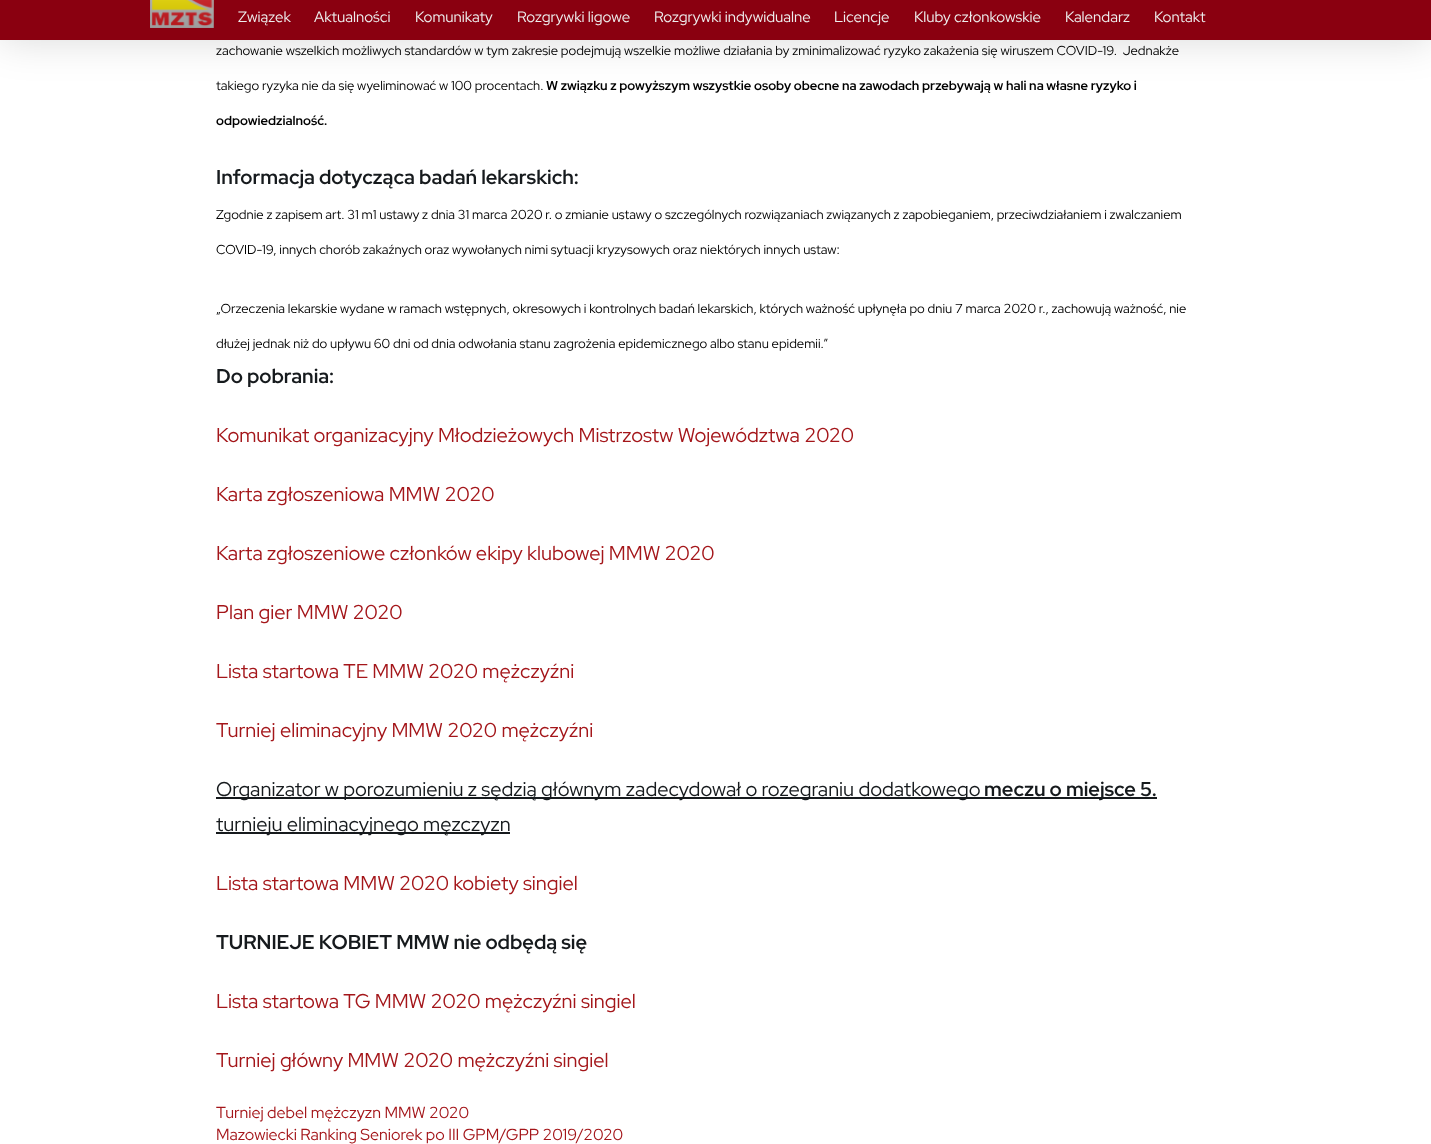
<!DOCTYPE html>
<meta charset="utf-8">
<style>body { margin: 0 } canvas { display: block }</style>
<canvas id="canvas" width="1431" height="1144"></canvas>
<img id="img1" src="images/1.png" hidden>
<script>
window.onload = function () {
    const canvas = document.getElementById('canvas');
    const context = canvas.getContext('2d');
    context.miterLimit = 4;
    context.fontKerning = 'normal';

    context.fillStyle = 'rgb(255, 255, 255)';
    context.fillRect(0, 0, 1431, 1144);
    context.fillStyle = 'rgba(0, 0, 0, 0.15)';
    context.filter = 'blur(20px)';
    context.beginPath();
    context.rect(0, -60, 1431, 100);
    context.fill();
    context.filter = 'none';
    context.fillStyle = 'rgb(138, 0, 16)';
    context.fillRect(0, 0, 1431, 40);
    context.drawImage(document.getElementById('img1'), 150, 0, 64, 28);
    context.fillStyle = 'rgb(22, 26, 29)';
    context.fillRect(216, 797, 941, 2);
    context.fillRect(216, 832, 294, 2);
    context.font = '15px Red Hat Display';
    context.fillStyle = 'rgb(238, 238, 238)';
    context.fillText('Związek', 238, 22);
    context.fillText('Aktualności', 314, 22);
    context.fillText('Komunikaty', 415, 22);
    context.fillText('Rozgrywki ligowe', 517, 22);
    context.fillText('Rozgrywki indywidualne', 654, 22);
    context.fillText('Licencje', 834, 22);
    context.fillText('Kluby członkowskie', 914, 22);
    context.fillText('Kalendarz', 1065, 22);
    context.fillText('Kontakt', 1154, 22);
    context.font = '13px Red Hat Display';
    context.fillStyle = 'rgb(0, 0, 0)';
    context.fillText('zachowanie wszelkich możliwych standardów w tym zakresie podejmują wszelkie możliwe działania by zminimalizować ryzyko zakażenia się wiruszem COVID-19.  Jednakże', 216, 55);
    context.fillText('takiego ryzyka nie da się wyeliminować w 100 procentach.', 216, 90);
    context.font = 'bold 13px Red Hat Display';
    context.fillText('W związku z powyższym wszystkie osoby obecne na zawodach przebywają w hali na własne ryzyko i', 546, 90);
    context.fillText('odpowiedzialność.', 216, 125);
    context.font = 'bold 20px Red Hat Display';
    context.fillStyle = 'rgb(22, 26, 29)';
    context.fillText('Informacja dotycząca badań lekarskich:', 216, 184);
    context.font = '13px Red Hat Display';
    context.fillStyle = 'rgb(0, 0, 0)';
    context.fillText('Zgodnie z zapisem art. 31 m1 ustawy z dnia 31 marca 2020 r. o zmianie ustawy o szczególnych rozwiązaniach związanych z zapobieganiem, przeciwdziałaniem i zwalczaniem', 216, 219);
    context.fillText('COVID-19, innych chorób zakaźnych oraz wywołanych nimi sytuacji kryzysowych oraz niektórych innych ustaw:', 216, 254);
    context.fillText('„Orzeczenia lekarskie wydane w ramach wstępnych, okresowych i kontrolnych badań lekarskich, których ważność upłynęła po dniu 7 marca 2020 r., zachowują ważność, nie', 216, 313);
    context.fillText('dłużej jednak niż do upływu 60 dni od dnia odwołania stanu zagrożenia epidemicznego albo stanu epidemii.”', 216, 348);
    context.font = 'bold 20px Red Hat Display';
    context.fillStyle = 'rgb(22, 26, 29)';
    context.fillText('Do pobrania:', 216, 383);
    context.font = '20px Red Hat Display';
    context.fillStyle = 'rgb(164, 22, 26)';
    context.fillText('Komunikat organizacyjny Młodzieżowych Mistrzostw Województwa 2020', 216, 442);
    context.fillText('Karta zgłoszeniowa MMW 2020', 216, 501);
    context.fillText('Karta zgłoszeniowe członków ekipy klubowej MMW 2020', 216, 560);
    context.fillText('Plan gier MMW 2020', 216, 619);
    context.fillText('Lista startowa TE MMW 2020 mężczyźni', 216, 678);
    context.fillText('Turniej eliminacyjny MMW 2020 mężczyźni', 216, 737);
    context.fillStyle = 'rgb(22, 26, 29)';
    context.fillText('Organizator w porozumieniu z sędzią głównym zadecydował o rozegraniu dodatkowego', 216, 796);
    context.font = 'bold 20px Red Hat Display';
    context.fillText('meczu o miejsce 5.', 984, 796);
    context.font = '20px Red Hat Display';
    context.fillText('turnieju eliminacyjnego męzczyzn', 216, 831);
    context.fillStyle = 'rgb(164, 22, 26)';
    context.fillText('Lista startowa MMW 2020 kobiety singiel', 216, 890);
    context.font = 'bold 20px Red Hat Display';
    context.fillStyle = 'rgb(22, 26, 29)';
    context.fillText('TURNIEJE KOBIET MMW nie odbędą się', 216, 949);
    context.font = '20px Red Hat Display';
    context.fillStyle = 'rgb(164, 22, 26)';
    context.fillText('Lista startowa TG MMW 2020 mężczyźni singiel', 216, 1008);
    context.fillText('Turniej główny MMW 2020 mężczyźni singiel', 216, 1067);
    context.font = '16px Red Hat Display';
    context.fillText('Turniej debel mężczyzn MMW 2020', 216, 1118);
    context.fillText('Mazowiecki Ranking Seniorek po III GPM/GPP 2019/2020', 216, 1140);
};
</script>
